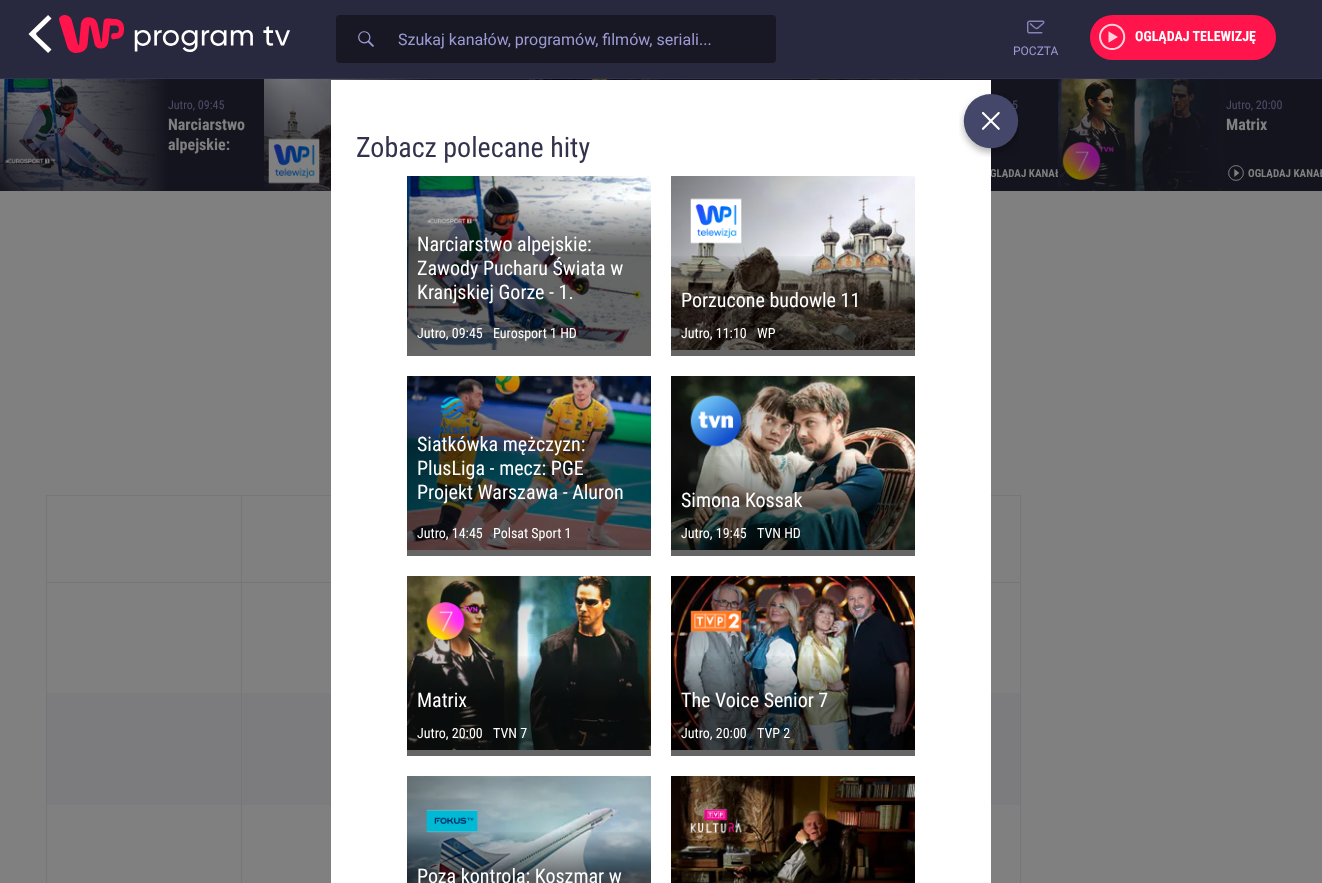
<!DOCTYPE html>
<meta charset="utf-8">
<style>body { margin: 0 } canvas { display: block }</style>
<canvas id="canvas" width="1322" height="883"></canvas>
<img id="img1" src="images/1.png" hidden>
<img id="img2" src="images/2.png" hidden>
<img id="img3" src="images/3.png" hidden>
<img id="img4" src="images/4.png" hidden>
<img id="img5" src="images/5.png" hidden>
<img id="img6" src="images/6.png" hidden>
<img id="img7" src="images/7.png" hidden>
<img id="img8" src="images/8.png" hidden>
<img id="img9" src="images/9.png" hidden>
<img id="img10" src="images/10.png" hidden>
<img id="img11" src="images/11.png" hidden>
<img id="img12" src="images/14.png" hidden>
<img id="img13" src="images/12.png" hidden>
<img id="img14" src="images/13.png" hidden>
<img id="img15" src="images/15.png" hidden>
<img id="img16" src="images/16.png" hidden>
<img id="img17" src="images/17.png" hidden>
<img id="img18" src="images/18.png" hidden>
<img id="img19" src="images/19.png" hidden>
<img id="img20" src="images/20.png" hidden>
<img id="img21" src="images/21.png" hidden>
<img id="img22" src="images/22.png" hidden>
<img id="img23" src="images/23.png" hidden>
<img id="img24" src="images/24.png" hidden>
<img id="img25" src="images/25.png" hidden>
<img id="img26" src="images/26.png" hidden>
<img id="img27" src="images/27.png" hidden>
<img id="img28" src="images/28.png" hidden>
<img id="img29" src="images/29.png" hidden>
<img id="img30" src="images/30.png" hidden>
<img id="img31" src="images/31.png" hidden>
<script>
window.onload = function () {
    const canvas = document.getElementById('canvas');
    const context = canvas.getContext('2d');
    context.miterLimit = 4;
    context.fontKerning = 'normal';
    let gradient;

    context.fillStyle = 'rgb(128, 128, 128)';
    context.fillRect(0, 0, 1322, 883);
    context.fillStyle = 'rgb(40, 40, 62)';
    context.fillRect(0, 0, 1322, 78);
    context.fillStyle = 'rgb(50, 50, 77)';
    context.fillRect(0, 78, 1322, 1);
    context.drawImage(document.getElementById('img1'), 28, 15, 24, 38);
    context.drawImage(document.getElementById('img2'), 59, 15, 231, 38);
    context.fillStyle = 'rgb(24, 24, 37)';
    context.beginPath();
    context.roundRect(336, 15, 440, 48, 4);
    context.fill();
    context.drawImage(document.getElementById('img3'), 358, 31, 16, 16);
    context.fillStyle = 'rgb(255, 20, 75)';
    context.beginPath();
    context.roundRect(1091, 16, 184, 43, 21.5);
    context.fill();
    context.strokeStyle = 'rgb(255, 20, 75)';
    context.lineWidth = 2;
    context.stroke();
    context.drawImage(document.getElementById('img4'), 1099, 23, 27, 27);
    context.drawImage(document.getElementById('img5'), 1027, 20, 18, 14);
    context.fillStyle = 'rgb(20, 20, 31)';
    context.fillRect(168, 79, 890, 112);
    context.drawImage(document.getElementById('img6'), 264, 79, 168, 112);
    context.drawImage(document.getElementById('img7'), 268, 138, 52, 46);
    context.drawImage(document.getElementById('img8'), 529, 79, 168, 1);
    context.drawImage(document.getElementById('img9'), 0, 79, 168, 112);
    context.drawImage(document.getElementById('img10'), 4, 158, 52, 6);
    context.drawImage(document.getElementById('img11'), 793, 79, 168, 1);
    context.fillRect(1226, 79, 96, 112);
    context.drawImage(document.getElementById('img12'), 1228, 165, 16, 16);
    context.fillStyle = 'rgb(118, 118, 122)';
    context.fillRect(46, 581, 1, 302);
    context.fillStyle = 'rgb(124, 124, 126)';
    context.fillRect(47, 693, 973, 112);
    context.fillStyle = 'rgb(118, 118, 122)';
    context.fillRect(241, 581, 1, 302);
    context.strokeStyle = 'rgb(118, 118, 122)';
    context.lineWidth = 1;
    context.strokeRect(46.5, 495.5, 195, 87);
    context.fillRect(242, 495, 89, 1);
    context.fillRect(242, 582, 89, 1);
    context.fillRect(991, 495, 30, 1);
    context.fillRect(1020, 581, 1, 302);
    context.fillRect(1020, 495, 1, 88);
    context.fillRect(991, 582, 30, 1);
    context.font = '16px Roboto';
    context.fillStyle = 'rgb(157, 155, 212)';
    context.fillText('Szukaj kanałów, programów, filmów, seriali...', 398, 45);
    context.font = 'bold 14px Roboto Condensed';
    context.fillStyle = 'rgb(255, 255, 255)';
    context.fillText('OGLĄDAJ TELEWIZJĘ', 1135, 41);
    context.font = '12px Roboto';
    context.fillStyle = 'rgb(157, 155, 212)';
    context.fillText('POCZTA', 1013, 55);
    context.font = '12px Roboto Condensed';
    context.fillStyle = 'rgb(79, 78, 106)';
    context.fillText('Jutro, 09:45', 168, 109);
    context.font = 'bold 16px Roboto Condensed';
    context.fillStyle = 'rgb(128, 128, 128)';
    context.fillText('Narciarstwo', 168, 130);
    context.fillText('alpejskie:', 168, 150);
    context.font = '12px Roboto Condensed';
    context.fillStyle = 'rgb(79, 78, 106)';
    context.fillText('5', 1012, 109);
    context.save();
    context.beginPath();
    context.rect(983, 169, 77, 9);
    context.clip();
    context.font = 'bold 11px Roboto Condensed';
    context.fillStyle = 'rgb(128, 128, 128)';
    context.fillText('GLĄDAJ KANAŁ', 990, 177);
    context.restore();
    context.fillText('Jutro, 20:00', 1226, 109);
    context.drawImage(document.getElementById('img13'), 1058, 79, 168, 112);
    context.drawImage(document.getElementById('img14'), 1062, 142, 52, 38);
    context.font = 'bold 16px Roboto Condensed';
    context.fillStyle = 'rgb(128, 128, 128)';
    context.fillText('Matrix', 1226, 130);
    context.save();
    context.beginPath();
    context.rect(1248, 169, 74, 9);
    context.clip();
    context.font = 'bold 11px Roboto Condensed';
    context.fillText('OGLĄDAJ KANAŁ', 1248, 177);
    context.restore();
    context.fillStyle = 'rgb(255, 255, 255)';
    context.fillRect(331, 80, 660, 803);
    context.drawImage(document.getElementById('img15'), 959, 93, 60, 64);
    context.font = '28px Roboto Condensed';
    context.fillStyle = 'rgb(50, 50, 77)';
    context.fillText('Zobacz polecane hity', 356, 157);
    context.drawImage(document.getElementById('img16'), 407, 176, 244, 174);
    gradient = context.createLinearGradient(439, 151, 619, 381);
    gradient.addColorStop(0.02, 'rgba(0, 0, 0, 0.47)');
    gradient.addColorStop(0.5, 'rgba(0, 0, 0, 0)');
    context.fillStyle = gradient;
    context.fillRect(407, 176, 226, 177);
    context.drawImage(document.getElementById('img17'), 426, 218, 52, 6);
    gradient = context.createLinearGradient(529, 198, 529, 356);
    gradient.addColorStop(0, 'rgba(0, 0, 0, 0)');
    gradient.addColorStop(0.3, 'rgba(0, 0, 0, 0.6)');
    gradient.addColorStop(1, 'rgba(0, 0, 0, 0.6)');
    context.fillStyle = gradient;
    context.fillRect(407, 200, 244, 156);
    context.font = '20px Roboto Condensed';
    context.fillStyle = 'rgb(255, 255, 255)';
    context.fillText('Narciarstwo alpejskie:', 417, 251);
    context.fillText('Zawody Pucharu Świata w', 417, 275);
    context.fillText('Kranjskiej Gorze - 1.', 417, 299);
    context.font = '14px Roboto Condensed';
    context.fillText('Jutro, 09:45', 417, 338);
    context.fillText('Eurosport 1 HD', 493, 338);
    context.drawImage(document.getElementById('img18'), 671, 176, 244, 174);
    gradient = context.createLinearGradient(703, 151, 883, 381);
    gradient.addColorStop(0.02, 'rgba(0, 0, 0, 0.47)');
    gradient.addColorStop(0.5, 'rgba(0, 0, 0, 0)');
    context.fillStyle = gradient;
    context.fillRect(671, 176, 226, 177);
    context.drawImage(document.getElementById('img19'), 690, 198, 52, 46);
    gradient = context.createLinearGradient(793, 254, 793, 356);
    gradient.addColorStop(0, 'rgba(0, 0, 0, 0)');
    gradient.addColorStop(0.47, 'rgba(0, 0, 0, 0.6)');
    gradient.addColorStop(1, 'rgba(0, 0, 0, 0.6)');
    context.fillStyle = gradient;
    context.fillRect(671, 256, 244, 100);
    context.font = '20px Roboto Condensed';
    context.fillStyle = 'rgb(255, 255, 255)';
    context.fillText('Porzucone budowle 11', 681, 307);
    context.font = '14px Roboto Condensed';
    context.fillText('Jutro, 11:10', 681, 338);
    context.fillText('WP', 757, 338);
    context.drawImage(document.getElementById('img20'), 407, 376, 244, 174);
    gradient = context.createLinearGradient(439, 351, 619, 581);
    gradient.addColorStop(0.02, 'rgba(0, 0, 0, 0.47)');
    gradient.addColorStop(0.5, 'rgba(0, 0, 0, 0)');
    context.fillStyle = gradient;
    context.fillRect(407, 376, 215, 177);
    context.drawImage(document.getElementById('img21'), 433, 396, 38, 51);
    gradient = context.createLinearGradient(529, 398, 529, 556);
    gradient.addColorStop(0, 'rgba(0, 0, 0, 0)');
    gradient.addColorStop(0.3, 'rgba(0, 0, 0, 0.6)');
    gradient.addColorStop(1, 'rgba(0, 0, 0, 0.6)');
    context.fillStyle = gradient;
    context.fillRect(407, 400, 244, 156);
    context.font = '20px Roboto Condensed';
    context.fillStyle = 'rgb(255, 255, 255)';
    context.fillText('Siatkówka mężczyzn:', 417, 451);
    context.fillText('PlusLiga - mecz: PGE', 417, 475);
    context.fillText('Projekt Warszawa - Aluron', 417, 499);
    context.font = '14px Roboto Condensed';
    context.fillText('Jutro, 14:45', 417, 538);
    context.fillText('Polsat Sport 1', 493, 538);
    context.drawImage(document.getElementById('img22'), 671, 376, 244, 174);
    gradient = context.createLinearGradient(703, 351, 883, 581);
    gradient.addColorStop(0.02, 'rgba(0, 0, 0, 0.47)');
    gradient.addColorStop(0.5, 'rgba(0, 0, 0, 0)');
    context.fillStyle = gradient;
    context.fillRect(671, 376, 197, 177);
    context.drawImage(document.getElementById('img23'), 690, 395, 52, 52);
    gradient = context.createLinearGradient(793, 454, 793, 556);
    gradient.addColorStop(0, 'rgba(0, 0, 0, 0)');
    gradient.addColorStop(0.47, 'rgba(0, 0, 0, 0.6)');
    gradient.addColorStop(1, 'rgba(0, 0, 0, 0.6)');
    context.fillStyle = gradient;
    context.fillRect(671, 456, 244, 100);
    context.font = '20px Roboto Condensed';
    context.fillStyle = 'rgb(255, 255, 255)';
    context.fillText('Simona Kossak', 681, 507);
    context.font = '14px Roboto Condensed';
    context.fillText('Jutro, 19:45', 681, 538);
    context.fillText('TVN HD', 757, 538);
    context.drawImage(document.getElementById('img24'), 407, 576, 244, 174);
    gradient = context.createLinearGradient(439, 551, 619, 781);
    gradient.addColorStop(0.02, 'rgba(0, 0, 0, 0.47)');
    gradient.addColorStop(0.5, 'rgba(0, 0, 0, 0)');
    context.fillStyle = gradient;
    context.fillRect(407, 576, 217, 177);
    context.drawImage(document.getElementById('img25'), 426, 602, 52, 38);
    gradient = context.createLinearGradient(529, 654, 529, 756);
    gradient.addColorStop(0, 'rgba(0, 0, 0, 0)');
    gradient.addColorStop(0.47, 'rgba(0, 0, 0, 0.6)');
    gradient.addColorStop(1, 'rgba(0, 0, 0, 0.6)');
    context.fillStyle = gradient;
    context.fillRect(407, 656, 244, 100);
    context.font = '20px Roboto Condensed';
    context.fillStyle = 'rgb(255, 255, 255)';
    context.fillText('Matrix', 417, 707);
    context.font = '14px Roboto Condensed';
    context.fillText('Jutro, 20:00', 417, 738);
    context.fillText('TVN 7', 493, 738);
    context.drawImage(document.getElementById('img26'), 671, 576, 244, 174);
    gradient = context.createLinearGradient(703, 551, 883, 781);
    gradient.addColorStop(0.02, 'rgba(0, 0, 0, 0.47)');
    gradient.addColorStop(0.5, 'rgba(0, 0, 0, 0)');
    context.fillStyle = gradient;
    context.fillRect(671, 576, 221, 177);
    context.drawImage(document.getElementById('img27'), 690, 610, 52, 23);
    gradient = context.createLinearGradient(793, 654, 793, 756);
    gradient.addColorStop(0, 'rgba(0, 0, 0, 0)');
    gradient.addColorStop(0.47, 'rgba(0, 0, 0, 0.6)');
    gradient.addColorStop(1, 'rgba(0, 0, 0, 0.6)');
    context.fillStyle = gradient;
    context.fillRect(671, 656, 244, 100);
    context.font = '20px Roboto Condensed';
    context.fillStyle = 'rgb(255, 255, 255)';
    context.fillText('The Voice Senior 7', 681, 707);
    context.font = '14px Roboto Condensed';
    context.fillText('Jutro, 20:00', 681, 738);
    context.fillText('TVP 2', 757, 738);
    context.drawImage(document.getElementById('img28'), 407, 776, 244, 107);
    context.drawImage(document.getElementById('img29'), 426, 809, 52, 24);
    gradient = context.createLinearGradient(529, 830, 529, 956);
    gradient.addColorStop(0, 'rgba(0, 0, 0, 0)');
    gradient.addColorStop(0.38, 'rgba(0, 0, 0, 0.6)');
    gradient.addColorStop(1, 'rgba(0, 0, 0, 0.6)');
    context.fillStyle = gradient;
    context.fillRect(407, 832, 244, 51);
    context.font = '20px Roboto Condensed';
    context.fillStyle = 'rgb(255, 255, 255)';
    context.fillText('Poza kontrolą: Koszmar w', 417, 883);
    context.drawImage(document.getElementById('img30'), 671, 776, 244, 107);
    context.drawImage(document.getElementById('img31'), 690, 808, 52, 26);
};
</script>
